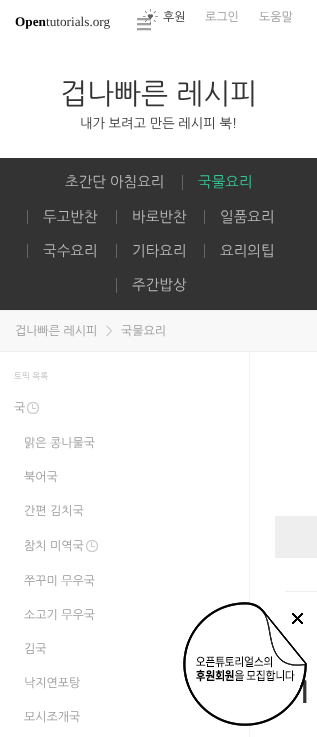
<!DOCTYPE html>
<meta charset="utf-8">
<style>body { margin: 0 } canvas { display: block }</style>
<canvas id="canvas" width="317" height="737"></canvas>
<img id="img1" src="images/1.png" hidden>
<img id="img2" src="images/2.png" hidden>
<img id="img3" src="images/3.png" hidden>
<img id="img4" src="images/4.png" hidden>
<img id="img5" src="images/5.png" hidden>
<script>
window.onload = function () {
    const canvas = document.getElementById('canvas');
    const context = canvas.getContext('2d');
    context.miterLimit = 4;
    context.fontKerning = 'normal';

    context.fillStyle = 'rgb(255, 255, 255)';
    context.fillRect(0, 0, 317, 737);
    context.drawImage(document.getElementById('img1'), 137, 18, 14, 13);
    context.drawImage(document.getElementById('img2'), 142, 9, 16, 15);
    context.fillStyle = 'rgb(51, 51, 51)';
    context.fillRect(0, 158, 317, 152);
    context.fillStyle = 'rgb(102, 102, 102)';
    context.fillRect(182, 175, 1, 15);
    context.fillRect(27, 210, 1, 14);
    context.fillRect(116, 210, 1, 14);
    context.fillRect(204, 210, 1, 14);
    context.fillRect(27, 244, 1, 14);
    context.fillRect(116, 244, 1, 14);
    context.fillRect(204, 244, 1, 14);
    context.fillRect(116, 278, 1, 15);
    context.fillStyle = 'rgb(248, 248, 248)';
    context.fillRect(0, 311, 317, 40);
    context.fillStyle = 'rgb(238, 238, 238)';
    context.fillRect(0, 310, 317, 1);
    context.fillRect(0, 351, 317, 1);
    context.fillStyle = 'rgb(242, 242, 242)';
    context.fillRect(249, 352, 1, 385);
    context.drawImage(document.getElementById('img3'), 27, 402, 12, 12);
    context.drawImage(document.getElementById('img3'), 86, 540, 12, 12);
    context.fillStyle = 'rgb(238, 238, 238)';
    context.fillRect(285, 591, 32, 1);
    context.fillRect(275, 516, 42, 42);
    context.font = 'bold 13.25px Liberation Serif';
    context.fillStyle = 'rgb(0, 0, 0)';
    context.fillText('Open', 15, 26);
    context.font = '13.25px Liberation Serif';
    context.fillStyle = 'rgb(51, 51, 51)';
    context.fillText('tutorials.org', 46, 26);
    context.font = '12px NanumGothic';
    context.fillText('후원', 163, 21);
    context.fillStyle = 'rgb(153, 153, 153)';
    context.fillText('로그인', 205, 21);
    context.fillText('도움말', 259, 21);
    context.font = '28.75px NanumGothic';
    context.fillStyle = 'rgb(51, 51, 51)';
    context.fillText('겁나빠른 레시피', 60, 104);
    context.font = '13.25px NanumGothic';
    context.fillText('내가 보려고 만든 레시피 북!', 80, 128);
    context.font = '14.5px NanumGothic';
    context.fillStyle = 'rgb(187, 187, 187)';
    context.fillText('초간단 아침요리', 65, 187);
    context.fillStyle = 'rgb(51, 204, 153)';
    context.fillText('국물요리', 198, 187);
    context.fillStyle = 'rgb(187, 187, 187)';
    context.fillText('두고반찬', 43, 222);
    context.fillText('바로반찬', 132, 222);
    context.fillText('일품요리', 220, 222);
    context.fillText('국수요리', 43, 256);
    context.fillText('기타요리', 132, 256);
    context.fillText('요리의팁', 220, 256);
    context.fillText('주간밥상', 132, 290);
    context.font = '12px NanumGothic';
    context.fillStyle = 'rgb(153, 153, 153)';
    context.fillText('겁나빠른 레시피', 15, 335);
    context.fillStyle = 'rgb(187, 187, 187)';
    context.fillText('>', 106, 335);
    context.fillStyle = 'rgb(153, 153, 153)';
    context.fillText('국물요리', 121, 335);
    context.font = '8.5px NanumGothic';
    context.fillStyle = 'rgb(187, 187, 187)';
    context.fillText('토픽 목록', 14, 379);
    context.font = '12px NanumGothic';
    context.fillStyle = 'rgb(153, 153, 153)';
    context.fillText('국', 14, 412);
    context.fillText('맑은 콩나물국', 24, 447);
    context.fillText('북어국', 24, 481);
    context.fillText('간편 김치국', 24, 515);
    context.fillText('참치 미역국', 24, 550);
    context.fillText('쭈꾸미 무우국', 24, 585);
    context.fillText('소고기 무우국', 24, 619);
    context.fillText('김국', 24, 653);
    context.fillText('낙지연포탕', 24, 687);
    context.fillText('모시조개국', 24, 721);
    context.font = 'bold 30px NanumGothic';
    context.fillStyle = 'rgb(51, 51, 51)';
    context.fillText('1', 295, 703);
    context.drawImage(document.getElementById('img4'), 183, 602, 124, 124);
    context.drawImage(document.getElementById('img5'), 292, 613, 11, 11);
};
</script>
